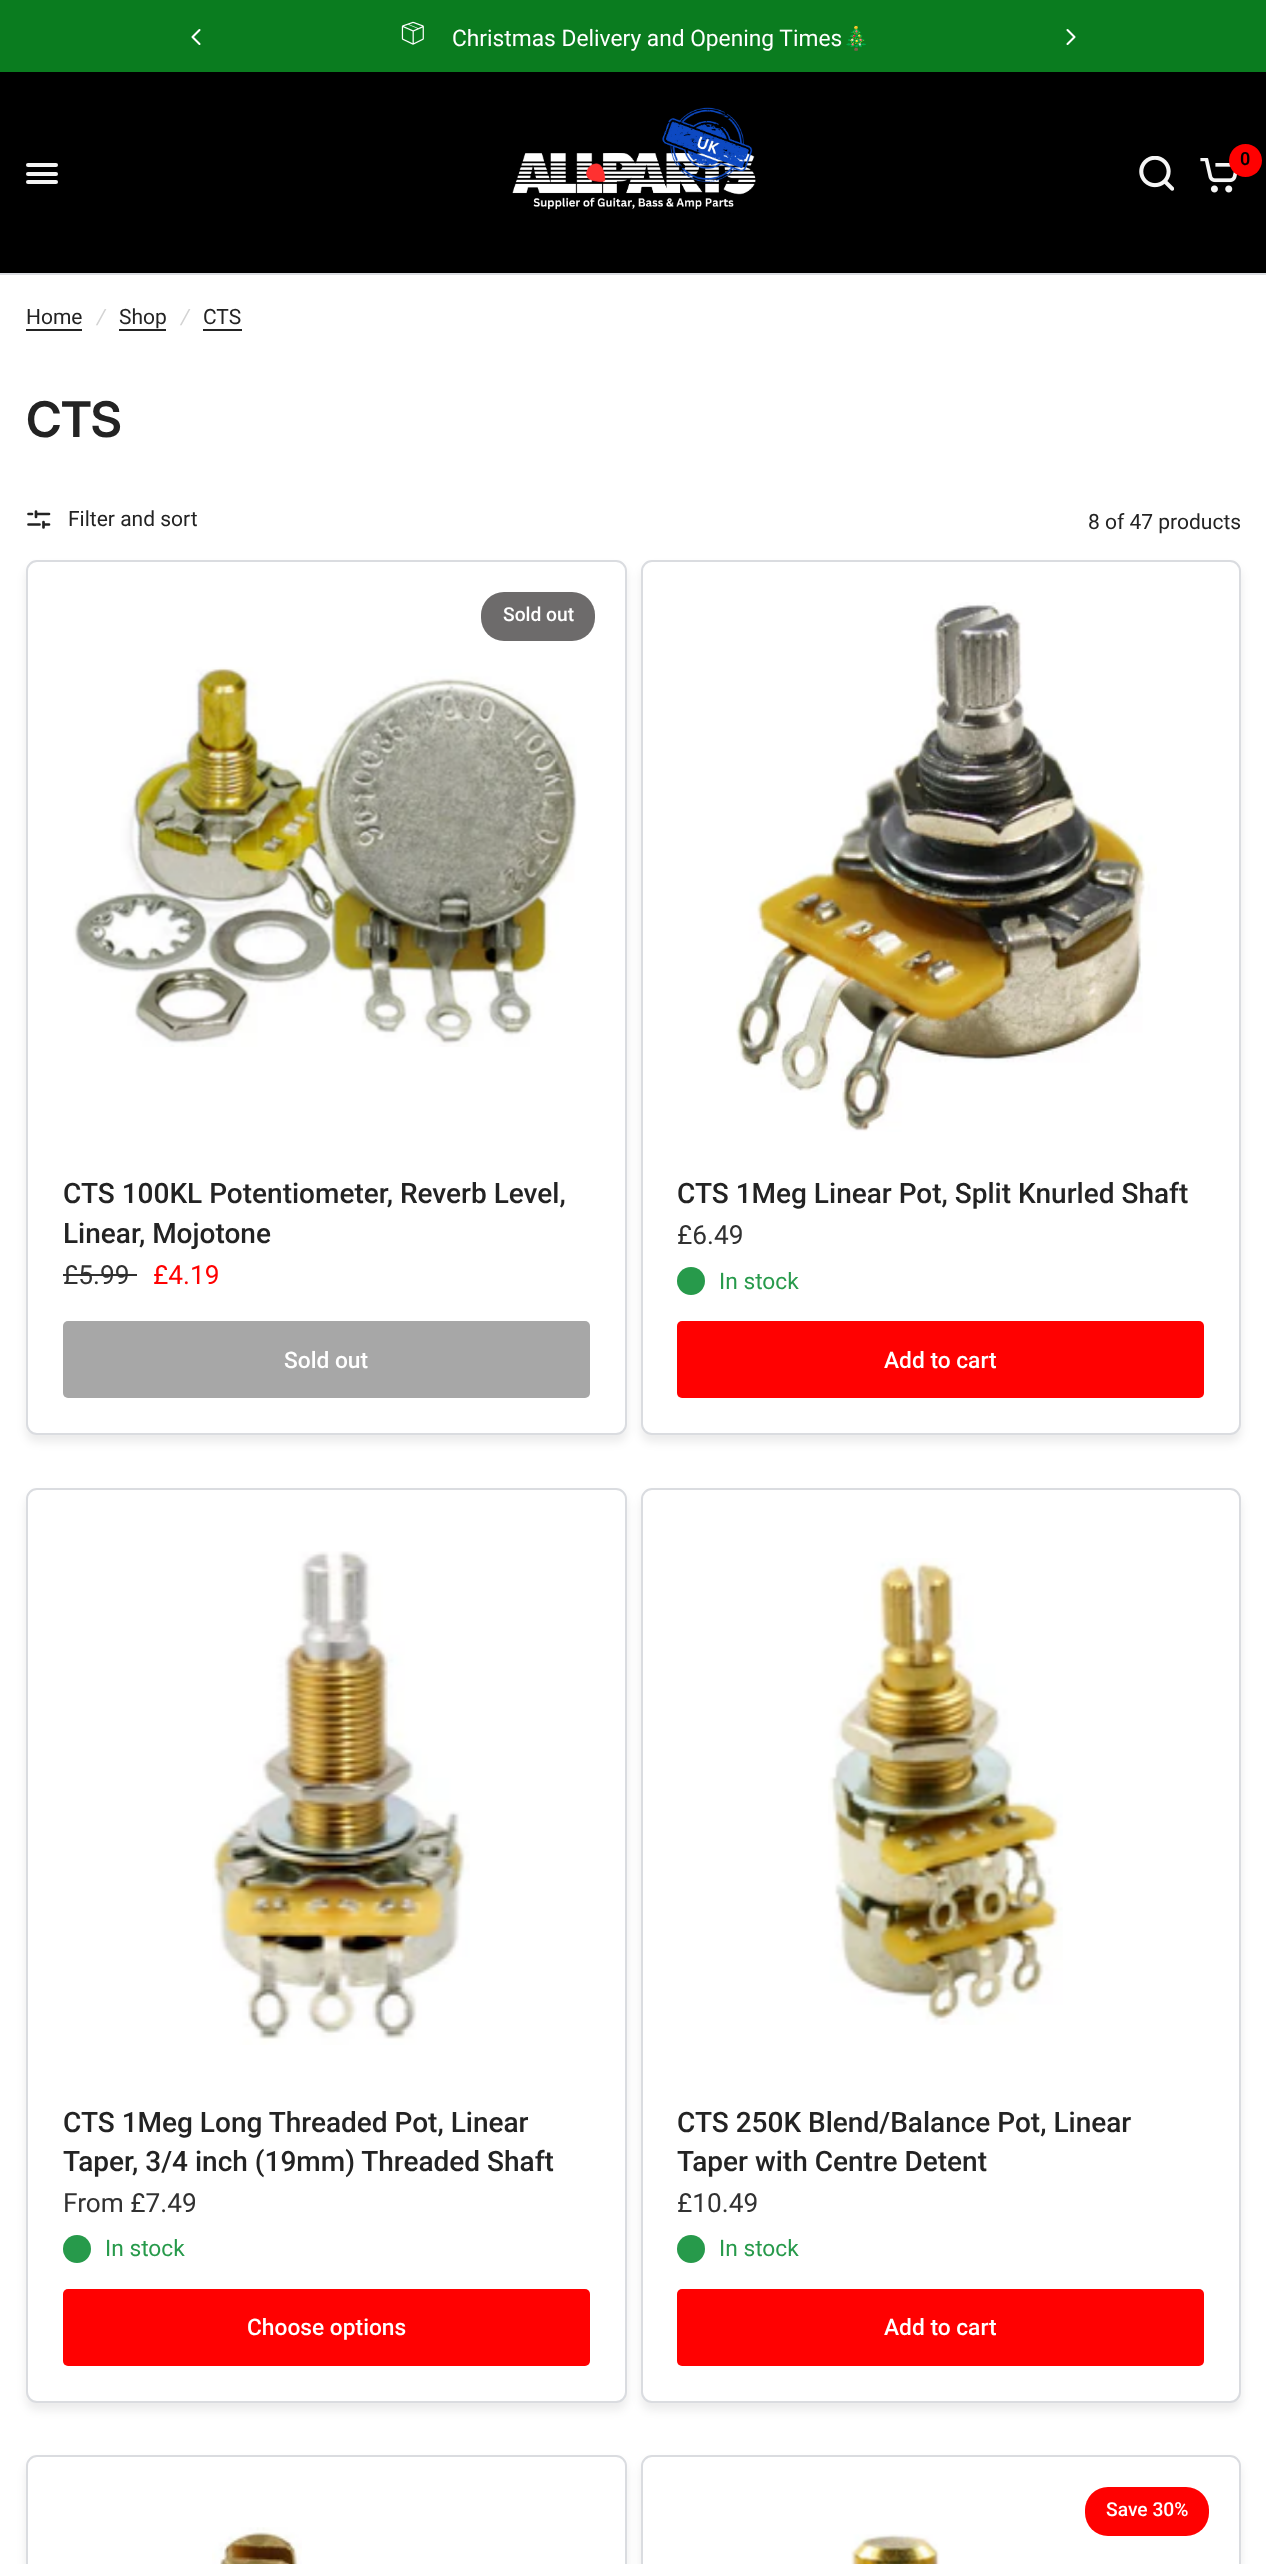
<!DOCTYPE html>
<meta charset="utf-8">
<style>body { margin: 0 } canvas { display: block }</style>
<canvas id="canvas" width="1266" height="2564"></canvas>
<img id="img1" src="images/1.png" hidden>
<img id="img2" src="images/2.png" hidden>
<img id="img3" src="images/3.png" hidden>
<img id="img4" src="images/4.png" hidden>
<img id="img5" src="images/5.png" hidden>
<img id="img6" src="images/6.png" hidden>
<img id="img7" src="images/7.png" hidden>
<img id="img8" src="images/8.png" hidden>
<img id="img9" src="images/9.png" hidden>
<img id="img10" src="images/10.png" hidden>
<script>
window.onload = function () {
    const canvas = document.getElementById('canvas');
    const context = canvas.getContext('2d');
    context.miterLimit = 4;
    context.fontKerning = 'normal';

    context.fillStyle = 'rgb(255, 255, 255)';
    context.fillRect(0, 0, 1266, 2564);
    context.fillStyle = 'rgb(10, 124, 31)';
    context.fillRect(0, 0, 1266, 72);
    context.beginPath();
    context.moveTo(199.5, 30);
    context.lineTo(192.5, 37);
    context.lineTo(199.5, 44);
    context.strokeStyle = 'rgb(255, 255, 255)';
    context.lineWidth = 2.1;
    context.lineCap = 'round';
    context.lineJoin = 'round';
    context.stroke();
    context.drawImage(document.getElementById('img1'), 401, 21, 23, 24);
    context.beginPath();
    context.moveTo(1067.5, 30);
    context.lineTo(1074.5, 37);
    context.lineTo(1067.5, 44);
    context.stroke();
    context.fillStyle = 'rgb(0, 0, 0)';
    context.fillRect(0, 72, 1266, 201);
    context.drawImage(document.getElementById('img2'), 512, 107, 244, 103);
    context.drawImage(document.getElementById('img3'), 1139, 156, 35, 35);
    context.drawImage(document.getElementById('img4'), 1200, 158, 38, 35);
    context.fillStyle = 'rgb(255, 1, 1)';
    context.beginPath();
    context.arc(1245.5, 160.5, 16.5, 0, 2 * Math.PI);
    context.fill();
    context.fillStyle = 'rgb(245, 245, 245)';
    context.beginPath();
    context.roundRect(26, 163, 32, 4, 2);
    context.fill();
    context.beginPath();
    context.roundRect(26, 172, 32, 4, 2);
    context.fill();
    context.beginPath();
    context.roundRect(26, 180, 32, 4, 2);
    context.fill();
    context.fillStyle = 'rgb(218, 220, 224)';
    context.fillRect(0, 273, 1266, 2);
    context.fillStyle = 'rgb(35, 35, 35)';
    context.fillRect(26, 329, 56, 2);
    context.fillRect(119, 329, 47, 2);
    context.fillRect(203, 329, 39, 2);
    context.beginPath();
    context.moveTo(39.5, 524.5);
    context.lineTo(28.5, 524.5);
    context.moveTo(49, 524.5);
    context.lineTo(43.5, 524.5);
    context.moveTo(32, 514);
    context.lineTo(28.5, 514);
    context.moveTo(49, 514);
    context.lineTo(36, 514);
    context.moveTo(36, 511.5);
    context.lineTo(36, 517);
    context.moveTo(43.5, 527.5);
    context.lineTo(43.5, 522);
    context.strokeStyle = 'rgb(35, 35, 35)';
    context.lineWidth = 2.7;
    context.stroke();
    context.fillStyle = 'rgba(0, 0, 0, 0.08)';
    context.filter = 'blur(5px)';
    context.beginPath();
    context.roundRect(26, 567, 601, 875, 11);
    context.fill();
    context.filter = 'none';
    context.fillStyle = 'rgb(255, 255, 255)';
    context.beginPath();
    context.roundRect(27, 561, 599, 873, 10);
    context.fill();
    context.strokeStyle = 'rgb(218, 220, 224)';
    context.lineWidth = 2;
    context.lineJoin = 'miter';
    context.stroke();
    context.fillStyle = 'rgb(109, 107, 107)';
    context.beginPath();
    context.roundRect(481, 592, 114, 49, 23);
    context.fill();
    context.drawImage(document.getElementById('img5'), 73, 667, 504, 380);
    context.fillStyle = 'rgb(49, 49, 49)';
    context.fillRect(63, 1274, 74, 2);
    context.fillStyle = 'rgb(167, 167, 167)';
    context.beginPath();
    context.roundRect(63, 1321, 527, 77, 5);
    context.fill();
    context.fillStyle = 'rgba(0, 0, 0, 0.08)';
    context.filter = 'blur(5px)';
    context.beginPath();
    context.roundRect(641, 567, 600, 875, 11);
    context.fill();
    context.filter = 'none';
    context.fillStyle = 'rgb(255, 255, 255)';
    context.beginPath();
    context.roundRect(642, 561, 598, 873, 10);
    context.fill();
    context.stroke();
    context.drawImage(document.getElementById('img6'), 736, 602, 421, 530);
    context.fillStyle = 'rgb(39, 154, 75)';
    context.beginPath();
    context.arc(691, 1281, 14, 0, 2 * Math.PI);
    context.fill();
    context.fillStyle = 'rgb(255, 1, 1)';
    context.beginPath();
    context.roundRect(677, 1321, 527, 77, 5);
    context.fill();
    context.fillStyle = 'rgba(0, 0, 0, 0.08)';
    context.filter = 'blur(5px)';
    context.beginPath();
    context.roundRect(26, 1495, 601, 915, 11);
    context.fill();
    context.filter = 'none';
    context.fillStyle = 'rgb(255, 255, 255)';
    context.beginPath();
    context.roundRect(27, 1489, 599, 913, 10);
    context.fill();
    context.stroke();
    context.drawImage(document.getElementById('img7'), 212, 1551, 258, 494);
    context.fillStyle = 'rgb(39, 154, 75)';
    context.beginPath();
    context.arc(77, 2249, 14, 0, 2 * Math.PI);
    context.fill();
    context.fillStyle = 'rgb(255, 1, 1)';
    context.beginPath();
    context.roundRect(63, 2289, 527, 77, 5);
    context.fill();
    context.fillStyle = 'rgba(0, 0, 0, 0.08)';
    context.filter = 'blur(5px)';
    context.beginPath();
    context.roundRect(641, 1495, 600, 915, 11);
    context.fill();
    context.filter = 'none';
    context.fillStyle = 'rgb(255, 255, 255)';
    context.beginPath();
    context.roundRect(642, 1489, 598, 913, 10);
    context.fill();
    context.stroke();
    context.drawImage(document.getElementById('img8'), 828, 1558, 235, 467);
    context.fillStyle = 'rgb(39, 154, 75)';
    context.beginPath();
    context.arc(691, 2249, 14, 0, 2 * Math.PI);
    context.fill();
    context.fillStyle = 'rgb(255, 1, 1)';
    context.beginPath();
    context.roundRect(677, 2289, 527, 77, 5);
    context.fill();
    context.fillStyle = 'rgba(0, 0, 0, 0.08)';
    context.filter = 'blur(5px)';
    context.beginPath();
    context.roundRect(26, 2462, 601, 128, 11);
    context.fill();
    context.filter = 'none';
    context.fillStyle = 'rgb(255, 255, 255)';
    context.beginPath();
    context.roundRect(27, 2456, 599, 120, 10);
    context.fill();
    context.stroke();
    context.drawImage(document.getElementById('img9'), 212, 2527, 90, 37);
    context.fillStyle = 'rgba(0, 0, 0, 0.08)';
    context.filter = 'blur(5px)';
    context.beginPath();
    context.roundRect(641, 2462, 600, 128, 11);
    context.fill();
    context.filter = 'none';
    context.fillStyle = 'rgb(255, 255, 255)';
    context.beginPath();
    context.roundRect(642, 2456, 598, 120, 10);
    context.fill();
    context.stroke();
    context.fillStyle = 'rgb(255, 1, 1)';
    context.beginPath();
    context.roundRect(1085, 2487, 124, 49, 23);
    context.fill();
    context.drawImage(document.getElementById('img10'), 851, 2534, 89, 30);
    context.font = '22.75px Roboto';
    context.fillStyle = 'rgb(255, 255, 255)';
    context.fillText('Christmas Delivery and Opening Times', 452, 46);
    context.font = '22.75px Noto Color Emoji';
    context.fillText('🎄', 842, 46);
    context.font = '600 18px Roboto';
    context.fillStyle = 'rgb(0, 0, 0)';
    context.fillText('0', 1240, 165);
    context.font = '21px Roboto';
    context.fillStyle = 'rgb(35, 35, 35)';
    context.fillText('Home', 26, 324);
    context.font = 'italic 21px Roboto';
    context.fillStyle = 'rgb(211, 211, 211)';
    context.fillText('/', 97, 324);
    context.font = '21px Roboto';
    context.fillStyle = 'rgb(35, 35, 35)';
    context.fillText('Shop', 119, 324);
    context.font = 'italic 21px Roboto';
    context.fillStyle = 'rgb(211, 211, 211)';
    context.fillText('/', 181, 324);
    context.font = '21px Roboto';
    context.fillStyle = 'rgb(35, 35, 35)';
    context.fillText('CTS', 203, 324);
    context.letterSpacing = '-1px';
    context.font = '600 49px Inter';
    context.fillText('CTS', 26, 437);
    context.letterSpacing = '0px';
    context.font = '21px Roboto';
    context.fillText('Filter and sort', 68, 526);
    context.fillText('8 of 47 products', 1088, 529);
    context.font = '500 19.25px Roboto';
    context.fillStyle = 'rgb(255, 255, 255)';
    context.fillText('Sold out', 503, 621);
    context.font = '500 28px Roboto';
    context.fillStyle = 'rgb(35, 35, 35)';
    context.fillText('CTS 100KL Potentiometer, Reverb Level,', 63, 1203);
    context.fillText('Linear, Mojotone', 63, 1243);
    context.font = '26.25px Roboto';
    context.fillStyle = 'rgb(49, 49, 49)';
    context.fillText('£5.99', 63, 1284);
    context.fillStyle = 'rgb(255, 1, 1)';
    context.fillText('£4.19', 153, 1284);
    context.font = '500 22.75px Roboto';
    context.fillStyle = 'rgb(255, 255, 255)';
    context.fillText('Sold out', 284, 1368);
    context.font = '500 28px Roboto';
    context.fillStyle = 'rgb(35, 35, 35)';
    context.fillText('CTS 1Meg Linear Pot, Split Knurled Shaft', 677, 1203);
    context.font = '26.25px Roboto';
    context.fillStyle = 'rgb(49, 49, 49)';
    context.fillText('£6.49', 677, 1244);
    context.font = '22.75px Roboto';
    context.fillStyle = 'rgb(39, 154, 75)';
    context.fillText('In stock', 719, 1289);
    context.font = '500 22.75px Roboto';
    context.fillStyle = 'rgb(255, 255, 255)';
    context.fillText('Add to cart', 884, 1368);
    context.font = '500 28px Roboto';
    context.fillStyle = 'rgb(35, 35, 35)';
    context.fillText('CTS 1Meg Long Threaded Pot, Linear', 63, 2132);
    context.fillText('Taper, 3/4 inch (19mm) Threaded Shaft', 63, 2171);
    context.font = '26.25px Roboto';
    context.fillStyle = 'rgb(49, 49, 49)';
    context.fillText('From £7.49', 63, 2212);
    context.font = '22.75px Roboto';
    context.fillStyle = 'rgb(39, 154, 75)';
    context.fillText('In stock', 105, 2256);
    context.font = '500 22.75px Roboto';
    context.fillStyle = 'rgb(255, 255, 255)';
    context.fillText('Choose options', 247, 2335);
    context.font = '500 28px Roboto';
    context.fillStyle = 'rgb(35, 35, 35)';
    context.fillText('CTS 250K Blend/Balance Pot, Linear', 677, 2132);
    context.fillText('Taper with Centre Detent', 677, 2171);
    context.font = '26.25px Roboto';
    context.fillStyle = 'rgb(49, 49, 49)';
    context.fillText('£10.49', 677, 2212);
    context.font = '22.75px Roboto';
    context.fillStyle = 'rgb(39, 154, 75)';
    context.fillText('In stock', 719, 2256);
    context.font = '500 22.75px Roboto';
    context.fillStyle = 'rgb(255, 255, 255)';
    context.fillText('Add to cart', 884, 2335);
    context.font = '500 19.25px Roboto';
    context.fillText('Save 30%', 1106, 2516);
};
</script>
